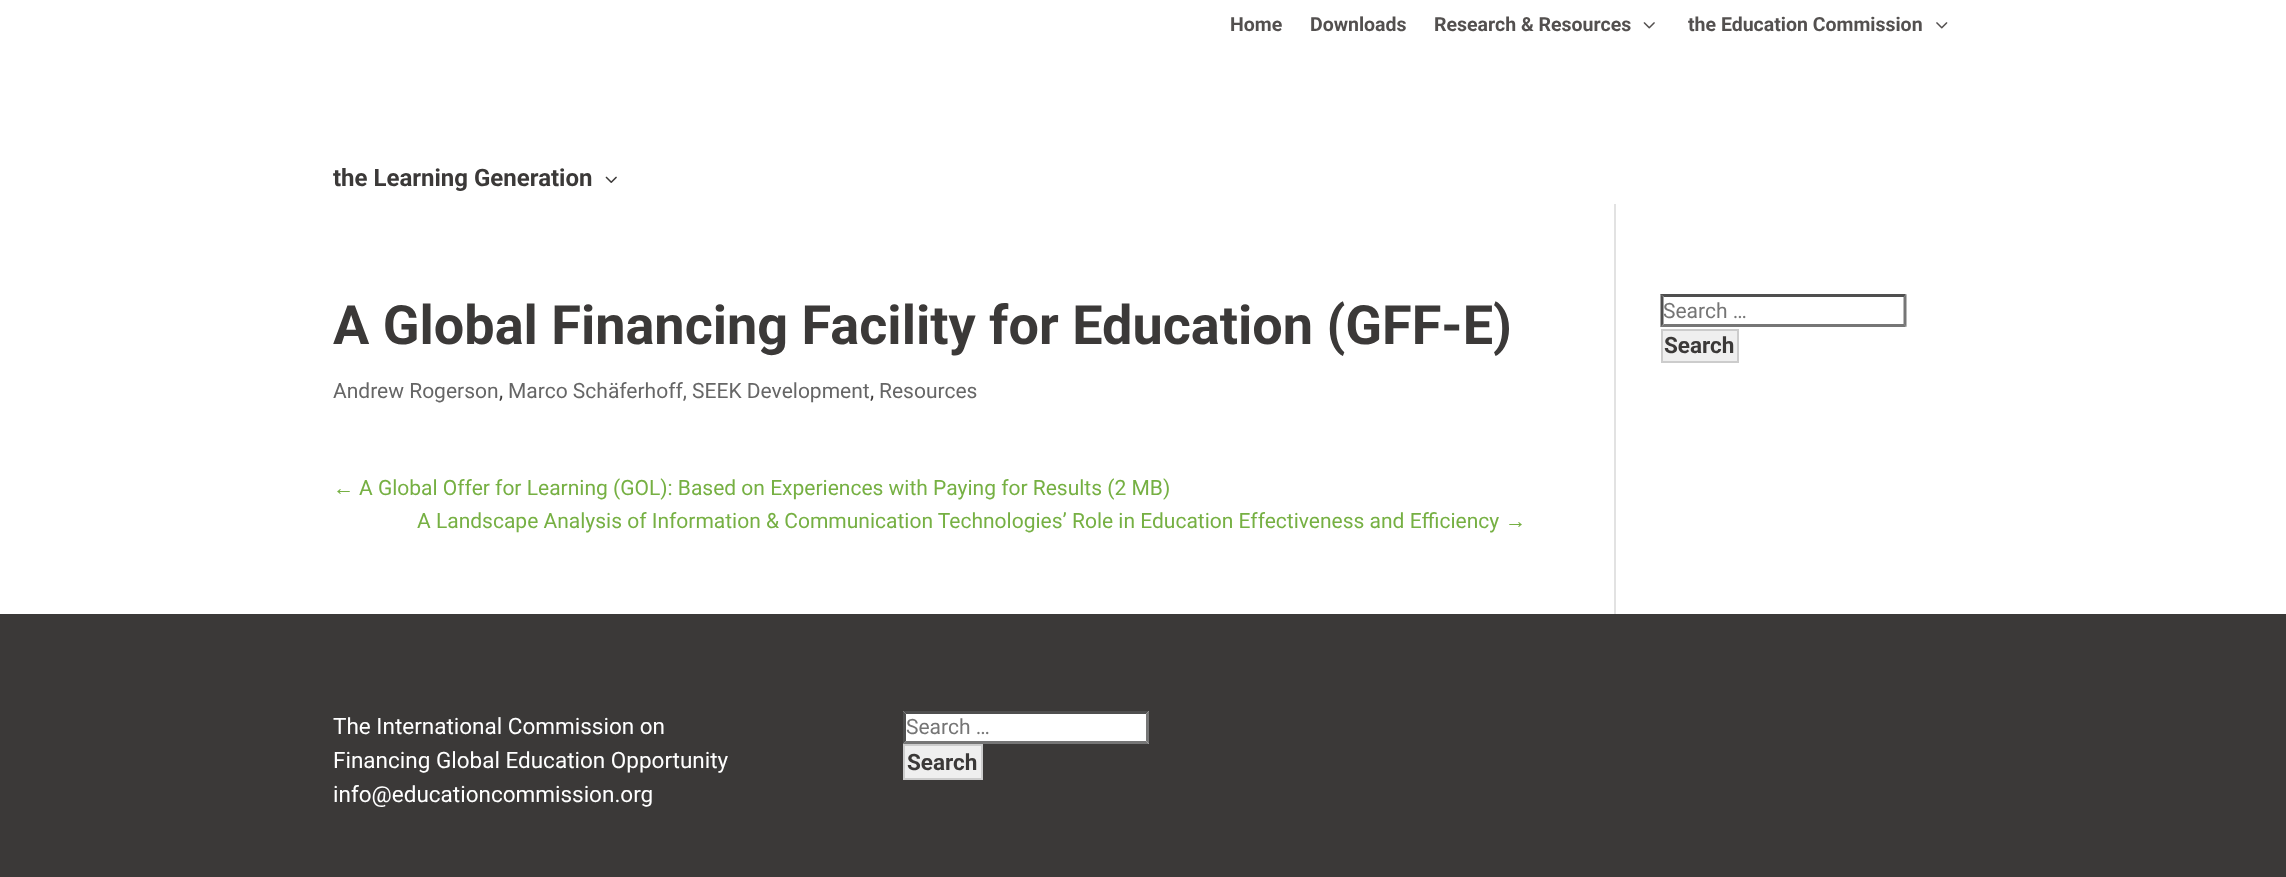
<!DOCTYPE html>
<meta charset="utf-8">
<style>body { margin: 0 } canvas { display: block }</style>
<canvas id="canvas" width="2286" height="877"></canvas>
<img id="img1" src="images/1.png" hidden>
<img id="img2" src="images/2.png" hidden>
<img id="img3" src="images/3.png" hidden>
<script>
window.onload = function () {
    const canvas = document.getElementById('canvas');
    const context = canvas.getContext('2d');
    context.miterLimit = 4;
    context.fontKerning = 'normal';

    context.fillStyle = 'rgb(255, 255, 255)';
    context.fillRect(0, 0, 2286, 877);
    context.drawImage(document.getElementById('img1'), 1643, 22, 12, 7);
    context.drawImage(document.getElementById('img2'), 1936, 22, 12, 7);
    context.drawImage(document.getElementById('img3'), 605, 176, 12, 7);
    context.fillStyle = 'rgb(226, 226, 226)';
    context.fillRect(1614, 204, 2, 410);
    context.fillStyle = 'rgb(79, 79, 79)';
    context.beginPath();
    context.moveTo(1660, 294);
    context.lineTo(1906, 294);
    context.lineTo(1904, 297);
    context.lineTo(1664, 297);
    context.closePath();
    context.fill();
    context.fillStyle = 'rgb(118, 118, 118)';
    context.beginPath();
    context.moveTo(1906.5, 294);
    context.lineTo(1906.5, 327);
    context.lineTo(1903.5, 324);
    context.lineTo(1903.5, 297);
    context.closePath();
    context.fill();
    context.beginPath();
    context.moveTo(1906, 327);
    context.lineTo(1660, 327);
    context.lineTo(1664, 324);
    context.lineTo(1904, 324);
    context.closePath();
    context.fill();
    context.fillStyle = 'rgb(79, 79, 79)';
    context.beginPath();
    context.moveTo(1660.5, 327);
    context.lineTo(1660.5, 294);
    context.lineTo(1663.5, 297);
    context.lineTo(1663.5, 324);
    context.closePath();
    context.fill();
    context.fillStyle = 'rgb(239, 239, 239)';
    context.beginPath();
    context.rect(1662, 330, 76, 32);
    context.fill();
    context.strokeStyle = 'rgb(204, 204, 204)';
    context.lineWidth = 2;
    context.stroke();
    context.fillStyle = 'rgb(59, 57, 56)';
    context.fillRect(0, 614, 2286, 263);
    context.fillStyle = 'rgb(255, 255, 255)';
    context.fillRect(903, 711, 246, 33);
    context.fillStyle = 'rgb(79, 79, 79)';
    context.beginPath();
    context.moveTo(903, 711);
    context.lineTo(1149, 711);
    context.lineTo(1146, 714);
    context.lineTo(906, 714);
    context.closePath();
    context.fill();
    context.fillStyle = 'rgb(118, 118, 118)';
    context.beginPath();
    context.moveTo(1149, 711);
    context.lineTo(1149, 744);
    context.lineTo(1146, 741);
    context.lineTo(1146, 714);
    context.closePath();
    context.fill();
    context.beginPath();
    context.moveTo(1149, 744);
    context.lineTo(903, 744);
    context.lineTo(906, 741);
    context.lineTo(1146, 741);
    context.closePath();
    context.fill();
    context.fillStyle = 'rgb(79, 79, 79)';
    context.beginPath();
    context.moveTo(903, 744);
    context.lineTo(903, 711);
    context.lineTo(906, 714);
    context.lineTo(906, 741);
    context.closePath();
    context.fill();
    context.fillStyle = 'rgb(239, 239, 239)';
    context.beginPath();
    context.rect(904, 745, 78, 34);
    context.fill();
    context.stroke();
    context.font = 'bold 19.5px Roboto';
    context.fillStyle = 'rgb(83, 80, 79)';
    context.fillText('Home', 1230, 31);
    context.fillText('Downloads', 1310, 31);
    context.fillText('Research & Resources', 1434, 31);
    context.fillText('the Education Commission', 1688, 31);
    context.font = 'bold 24px Roboto';
    context.fillStyle = 'rgb(59, 57, 56)';
    context.fillText('the Learning Generation', 333, 186);
    context.font = 'bold 54px Roboto';
    context.fillText('A Global Financing Facility for Education (GFF-E)', 333, 344);
    context.font = '21px Roboto';
    context.fillStyle = 'rgb(102, 102, 102)';
    context.fillText('Andrew Rogerson', 333, 398);
    context.fillStyle = 'rgb(59, 57, 56)';
    context.fillText(',', 499, 398);
    context.fillStyle = 'rgb(102, 102, 102)';
    context.fillText('Marco Schäferhoff, SEEK Development', 508, 398);
    context.fillStyle = 'rgb(59, 57, 56)';
    context.fillText(',', 870, 398);
    context.fillStyle = 'rgb(102, 102, 102)';
    context.fillText('Resources', 879, 398);
    context.font = '21px Liberation Serif';
    context.fillStyle = 'rgb(118, 176, 67)';
    context.fillText('←', 333, 495);
    context.font = '21px Roboto';
    context.fillText('A Global Offer for Learning (GOL): Based on Experiences with Paying for Results (2 MB)', 359, 495);
    context.fillText('A Landscape Analysis of Information & Communication Technologies’ Role in Education Effectiveness and Efficiency', 417, 528);
    context.font = '21px Liberation Serif';
    context.fillText('→', 1505, 528);
    context.font = '21px Roboto';
    context.fillStyle = 'rgb(117, 117, 117)';
    context.fillText('Search …', 1663, 318);
    context.font = 'bold 22.5px Roboto';
    context.fillStyle = 'rgb(59, 57, 56)';
    context.fillText('Search', 1664, 353);
    context.font = '22.5px Roboto';
    context.fillStyle = 'rgb(255, 255, 255)';
    context.fillText('The International Commission on', 333, 734);
    context.fillText('Financing Global Education Opportunity', 333, 768);
    context.fillText('info@educationcommission.org', 333, 802);
    context.font = '21px Roboto';
    context.fillStyle = 'rgb(117, 117, 117)';
    context.fillText('Search …', 906, 734);
    context.font = 'bold 22.5px Roboto';
    context.fillStyle = 'rgb(59, 57, 56)';
    context.fillText('Search', 907, 770);
};
</script>
